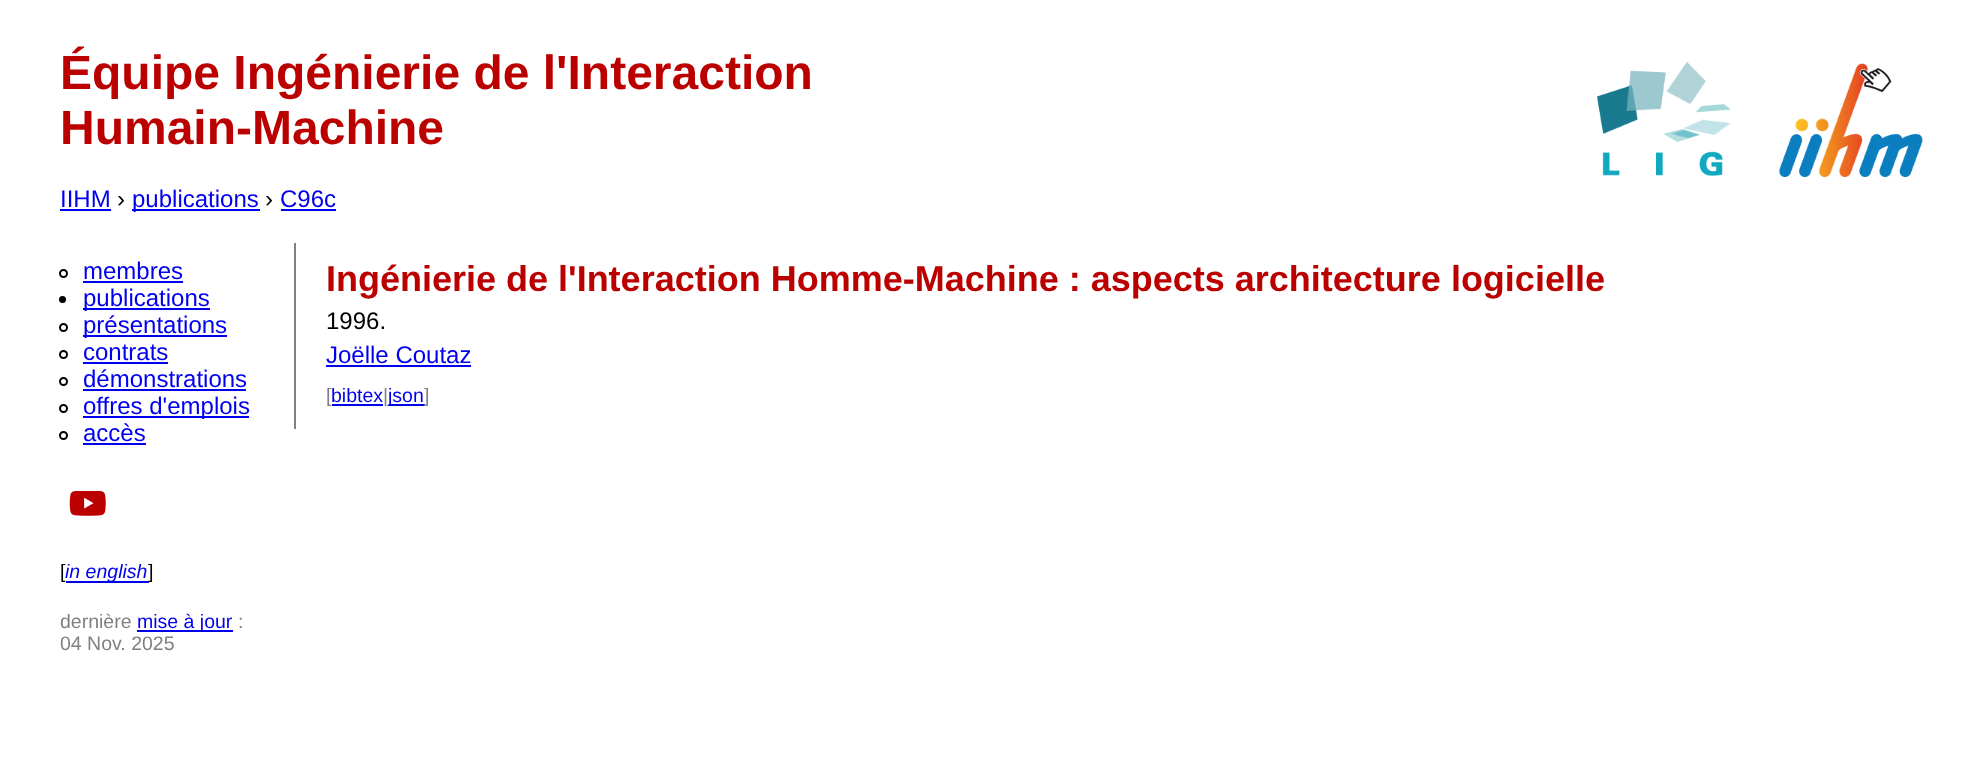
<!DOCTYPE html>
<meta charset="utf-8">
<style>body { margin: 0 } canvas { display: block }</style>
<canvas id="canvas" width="1985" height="768"></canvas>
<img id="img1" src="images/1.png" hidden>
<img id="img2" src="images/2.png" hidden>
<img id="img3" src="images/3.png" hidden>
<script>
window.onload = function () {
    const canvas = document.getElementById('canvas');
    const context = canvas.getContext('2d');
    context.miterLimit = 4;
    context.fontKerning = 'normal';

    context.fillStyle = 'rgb(255, 255, 255)';
    context.fillRect(0, 0, 1985, 768);
    context.drawImage(document.getElementById('img1'), 1596, 61, 135, 116);
    context.drawImage(document.getElementById('img2'), 1779, 63, 144, 114);
    context.fillStyle = 'rgb(0, 0, 238)';
    context.fillRect(60, 209, 51, 2);
    context.fillRect(132, 209, 128, 2);
    context.fillRect(281, 209, 55, 2);
    context.beginPath();
    context.arc(63.5, 273.5, 3.5, 0, 2 * Math.PI);
    context.strokeStyle = 'rgb(0, 0, 0)';
    context.lineWidth = 2;
    context.stroke();
    context.fillRect(83, 281, 100, 2);
    context.fillStyle = 'rgb(0, 0, 0)';
    context.beginPath();
    context.arc(62.5, 299.5, 3.5, 0, 2 * Math.PI);
    context.fill();
    context.fillStyle = 'rgb(0, 0, 238)';
    context.fillRect(83, 308, 127, 2);
    context.beginPath();
    context.arc(63.5, 327.5, 3.5, 0, 2 * Math.PI);
    context.stroke();
    context.fillRect(83, 335, 144, 2);
    context.beginPath();
    context.arc(63.5, 354.5, 3.5, 0, 2 * Math.PI);
    context.stroke();
    context.fillRect(83, 362, 85, 2);
    context.beginPath();
    context.arc(63.5, 381.5, 3.5, 0, 2 * Math.PI);
    context.stroke();
    context.fillRect(83, 389, 163, 2);
    context.beginPath();
    context.arc(63.5, 408.5, 3.5, 0, 2 * Math.PI);
    context.stroke();
    context.fillRect(83, 416, 166, 2);
    context.beginPath();
    context.arc(63.5, 435.5, 3.5, 0, 2 * Math.PI);
    context.stroke();
    context.fillRect(83, 443, 63, 2);
    context.drawImage(document.getElementById('img3'), 69, 491, 37, 25);
    context.fillRect(66, 581, 83, 2);
    context.fillRect(137, 630, 96, 2);
    context.fillStyle = 'rgb(128, 128, 128)';
    context.fillRect(294, 243, 2, 186);
    context.fillStyle = 'rgb(0, 0, 238)';
    context.fillRect(326, 365, 145, 2);
    context.fillRect(332, 404, 51, 2);
    context.fillRect(389, 404, 36, 2);
    context.font = 'bold 48px Liberation Sans';
    context.fillStyle = 'rgb(187, 0, 0)';
    context.fillText('Équipe Ingénierie de l\'Interaction', 60, 89);
    context.fillText('Humain-Machine', 60, 144);
    context.font = '24px Liberation Sans';
    context.fillStyle = 'rgb(0, 0, 238)';
    context.fillText('IIHM', 60, 207);
    context.fillStyle = 'rgb(0, 0, 0)';
    context.fillText('›', 117, 207);
    context.fillStyle = 'rgb(0, 0, 238)';
    context.fillText('publications', 132, 207);
    context.fillStyle = 'rgb(0, 0, 0)';
    context.fillText('›', 265, 207);
    context.fillStyle = 'rgb(0, 0, 238)';
    context.fillText('C96c', 280, 207);
    context.fillText('membres', 83, 279);
    context.fillText('publications', 83, 306);
    context.fillText('présentations', 83, 333);
    context.fillText('contrats', 83, 360);
    context.fillText('démonstrations', 83, 387);
    context.fillText('offres d\'emplois', 83, 414);
    context.fillText('accès', 83, 441);
    context.font = '19.5px Liberation Sans';
    context.fillStyle = 'rgb(0, 0, 0)';
    context.fillText('[', 60, 578);
    context.font = 'italic 19.5px Liberation Sans';
    context.fillStyle = 'rgb(0, 0, 238)';
    context.fillText('in english', 65, 578);
    context.font = '19.5px Liberation Sans';
    context.fillStyle = 'rgb(0, 0, 0)';
    context.fillText(']', 148, 578);
    context.fillStyle = 'rgb(128, 128, 128)';
    context.fillText('dernière', 60, 628);
    context.fillStyle = 'rgb(0, 0, 238)';
    context.fillText('mise à jour', 137, 628);
    context.fillStyle = 'rgb(128, 128, 128)';
    context.fillText(':', 238, 628);
    context.fillText('04 Nov. 2025', 60, 650);
    context.font = 'bold 36px Liberation Sans';
    context.fillStyle = 'rgb(187, 0, 0)';
    context.fillText('Ingénierie de l\'Interaction Homme-Machine : aspects architecture logicielle', 326, 291);
    context.font = '24px Liberation Sans';
    context.fillStyle = 'rgb(0, 0, 0)';
    context.fillText('1996.', 326, 329);
    context.fillStyle = 'rgb(0, 0, 238)';
    context.fillText('Joëlle Coutaz', 326, 363);
    context.font = '19.5px Liberation Sans';
    context.fillStyle = 'rgb(128, 128, 128)';
    context.fillText('[', 326, 402);
    context.fillStyle = 'rgb(0, 0, 238)';
    context.fillText('bibtex', 331, 402);
    context.fillStyle = 'rgb(128, 128, 128)';
    context.fillText('|', 383, 402);
    context.fillStyle = 'rgb(0, 0, 238)';
    context.fillText('json', 388, 402);
    context.fillStyle = 'rgb(128, 128, 128)';
    context.fillText(']', 424, 402);
};
</script>
